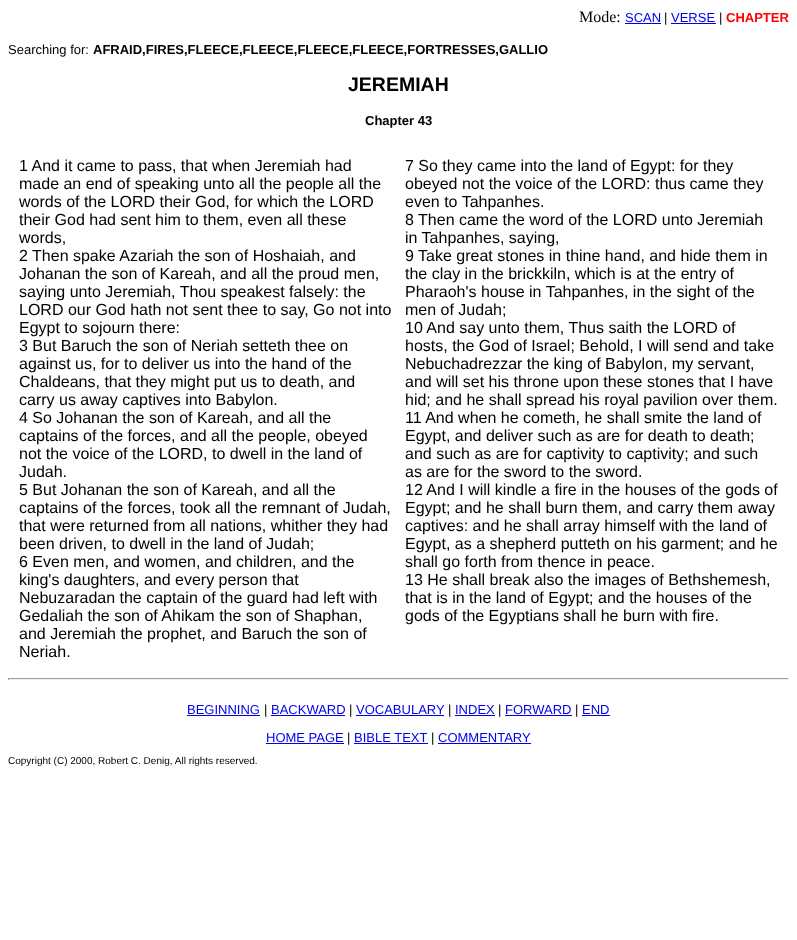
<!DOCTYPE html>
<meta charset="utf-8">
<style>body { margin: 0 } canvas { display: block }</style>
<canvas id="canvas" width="797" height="940"></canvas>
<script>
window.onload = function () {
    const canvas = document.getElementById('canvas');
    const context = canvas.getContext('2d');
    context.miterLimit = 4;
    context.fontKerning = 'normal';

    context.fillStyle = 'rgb(255, 255, 255)';
    context.fillRect(0, 0, 797, 940);
    context.fillStyle = 'rgb(0, 0, 238)';
    context.fillRect(625, 23, 36, 1);
    context.fillRect(671, 23, 45, 1);
    context.fillStyle = 'rgb(159, 159, 159)';
    context.fillRect(8, 678, 781, 1);
    context.fillStyle = 'rgb(238, 238, 238)';
    context.fillRect(788, 678, 1, 2);
    context.fillRect(8, 679, 781, 1);
    context.fillStyle = 'rgb(159, 159, 159)';
    context.fillRect(8, 678, 1, 2);
    context.fillStyle = 'rgb(0, 0, 238)';
    context.fillRect(187, 715, 73, 1);
    context.fillRect(271, 715, 74, 1);
    context.fillRect(356, 715, 88, 1);
    context.fillRect(455, 715, 40, 1);
    context.fillRect(505, 715, 67, 1);
    context.fillRect(582, 715, 28, 1);
    context.fillRect(266, 743, 78, 1);
    context.fillRect(354, 743, 74, 1);
    context.fillRect(438, 743, 93, 1);
    context.font = '16px Liberation Serif';
    context.fillStyle = 'rgb(0, 0, 0)';
    context.fillText('Mode:', 579, 22);
    context.font = '13px Liberation Sans';
    context.fillStyle = 'rgb(0, 0, 238)';
    context.fillText('SCAN', 625, 22);
    context.fillStyle = 'rgb(0, 0, 0)';
    context.fillText('|', 664, 22);
    context.fillStyle = 'rgb(0, 0, 238)';
    context.fillText('VERSE', 671, 22);
    context.fillStyle = 'rgb(0, 0, 0)';
    context.fillText('|', 719, 22);
    context.font = 'bold 13px Liberation Sans';
    context.fillStyle = 'rgb(255, 0, 0)';
    context.fillText('CHAPTER', 726, 22);
    context.font = '13px Liberation Sans';
    context.fillStyle = 'rgb(0, 0, 0)';
    context.fillText('Searching for:', 8, 54);
    context.font = 'bold 13px Liberation Sans';
    context.fillText('AFRAID,FIRES,FLEECE,FLEECE,FLEECE,FLEECE,FORTRESSES,GALLIO', 93, 54);
    context.font = 'bold 19.5px Liberation Sans';
    context.fillText('JEREMIAH', 348, 91);
    context.font = 'bold 13px Liberation Sans';
    context.fillText('Chapter 43', 365, 125);
    context.font = '16px Liberation Sans';
    context.fillText('1 And it came to pass, that when Jeremiah had', 19, 171);
    context.fillText('made an end of speaking unto all the people all the', 19, 189);
    context.fillText('words of the LORD their God, for which the LORD', 19, 207);
    context.fillText('their God had sent him to them, even all these', 19, 225);
    context.fillText('words,', 19, 243);
    context.fillText('2 Then spake Azariah the son of Hoshaiah, and', 19, 261);
    context.fillText('Johanan the son of Kareah, and all the proud men,', 19, 279);
    context.fillText('saying unto Jeremiah, Thou speakest falsely: the', 19, 297);
    context.fillText('LORD our God hath not sent thee to say, Go not into', 19, 315);
    context.fillText('Egypt to sojourn there:', 19, 333);
    context.fillText('3 But Baruch the son of Neriah setteth thee on', 19, 351);
    context.fillText('against us, for to deliver us into the hand of the', 19, 369);
    context.fillText('Chaldeans, that they might put us to death, and', 19, 387);
    context.fillText('carry us away captives into Babylon.', 19, 405);
    context.fillText('4 So Johanan the son of Kareah, and all the', 19, 423);
    context.fillText('captains of the forces, and all the people, obeyed', 19, 441);
    context.fillText('not the voice of the LORD, to dwell in the land of', 19, 459);
    context.fillText('Judah.', 19, 477);
    context.fillText('5 But Johanan the son of Kareah, and all the', 19, 495);
    context.fillText('captains of the forces, took all the remnant of Judah,', 19, 513);
    context.fillText('that were returned from all nations, whither they had', 19, 531);
    context.fillText('been driven, to dwell in the land of Judah;', 19, 549);
    context.fillText('6 Even men, and women, and children, and the', 19, 567);
    context.fillText('king\'s daughters, and every person that', 19, 585);
    context.fillText('Nebuzaradan the captain of the guard had left with', 19, 603);
    context.fillText('Gedaliah the son of Ahikam the son of Shaphan,', 19, 621);
    context.fillText('and Jeremiah the prophet, and Baruch the son of', 19, 639);
    context.fillText('Neriah.', 19, 657);
    context.fillText('7 So they came into the land of Egypt: for they', 405, 171);
    context.fillText('obeyed not the voice of the LORD: thus came they', 405, 189);
    context.fillText('even to Tahpanhes.', 405, 207);
    context.fillText('8 Then came the word of the LORD unto Jeremiah', 405, 225);
    context.fillText('in Tahpanhes, saying,', 405, 243);
    context.fillText('9 Take great stones in thine hand, and hide them in', 405, 261);
    context.fillText('the clay in the brickkiln, which is at the entry of', 405, 279);
    context.fillText('Pharaoh\'s house in Tahpanhes, in the sight of the', 405, 297);
    context.fillText('men of Judah;', 405, 315);
    context.fillText('10 And say unto them, Thus saith the LORD of', 405, 333);
    context.fillText('hosts, the God of Israel; Behold, I will send and take', 405, 351);
    context.fillText('Nebuchadrezzar the king of Babylon, my servant,', 405, 369);
    context.fillText('and will set his throne upon these stones that I have', 405, 387);
    context.fillText('hid; and he shall spread his royal pavilion over them.', 405, 405);
    context.fillText('11 And when he cometh, he shall smite the land of', 405, 423);
    context.fillText('Egypt, and deliver such as are for death to death;', 405, 441);
    context.fillText('and such as are for captivity to captivity; and such', 405, 459);
    context.fillText('as are for the sword to the sword.', 405, 477);
    context.fillText('12 And I will kindle a fire in the houses of the gods of', 405, 495);
    context.fillText('Egypt; and he shall burn them, and carry them away', 405, 513);
    context.fillText('captives: and he shall array himself with the land of', 405, 531);
    context.fillText('Egypt, as a shepherd putteth on his garment; and he', 405, 549);
    context.fillText('shall go forth from thence in peace.', 405, 567);
    context.fillText('13 He shall break also the images of Bethshemesh,', 405, 585);
    context.fillText('that is in the land of Egypt; and the houses of the', 405, 603);
    context.fillText('gods of the Egyptians shall he burn with fire.', 405, 621);
    context.font = '13px Liberation Sans';
    context.fillStyle = 'rgb(0, 0, 238)';
    context.fillText('BEGINNING', 187, 714);
    context.fillStyle = 'rgb(0, 0, 0)';
    context.fillText('|', 264, 714);
    context.fillStyle = 'rgb(0, 0, 238)';
    context.fillText('BACKWARD', 271, 714);
    context.fillStyle = 'rgb(0, 0, 0)';
    context.fillText('|', 349, 714);
    context.fillStyle = 'rgb(0, 0, 238)';
    context.fillText('VOCABULARY', 356, 714);
    context.fillStyle = 'rgb(0, 0, 0)';
    context.fillText('|', 448, 714);
    context.fillStyle = 'rgb(0, 0, 238)';
    context.fillText('INDEX', 455, 714);
    context.fillStyle = 'rgb(0, 0, 0)';
    context.fillText('|', 498, 714);
    context.fillStyle = 'rgb(0, 0, 238)';
    context.fillText('FORWARD', 505, 714);
    context.fillStyle = 'rgb(0, 0, 0)';
    context.fillText('|', 575, 714);
    context.fillStyle = 'rgb(0, 0, 238)';
    context.fillText('END', 582, 714);
    context.fillText('HOME PAGE', 266, 742);
    context.fillStyle = 'rgb(0, 0, 0)';
    context.fillText('|', 347, 742);
    context.fillStyle = 'rgb(0, 0, 238)';
    context.fillText('BIBLE TEXT', 354, 742);
    context.fillStyle = 'rgb(0, 0, 0)';
    context.fillText('|', 431, 742);
    context.fillStyle = 'rgb(0, 0, 238)';
    context.fillText('COMMENTARY', 438, 742);
    context.font = '10px Liberation Sans';
    context.fillStyle = 'rgb(0, 0, 0)';
    context.fillText('Copyright (C) 2000, Robert C. Denig, All rights reserved.', 8, 764);
};
</script>
